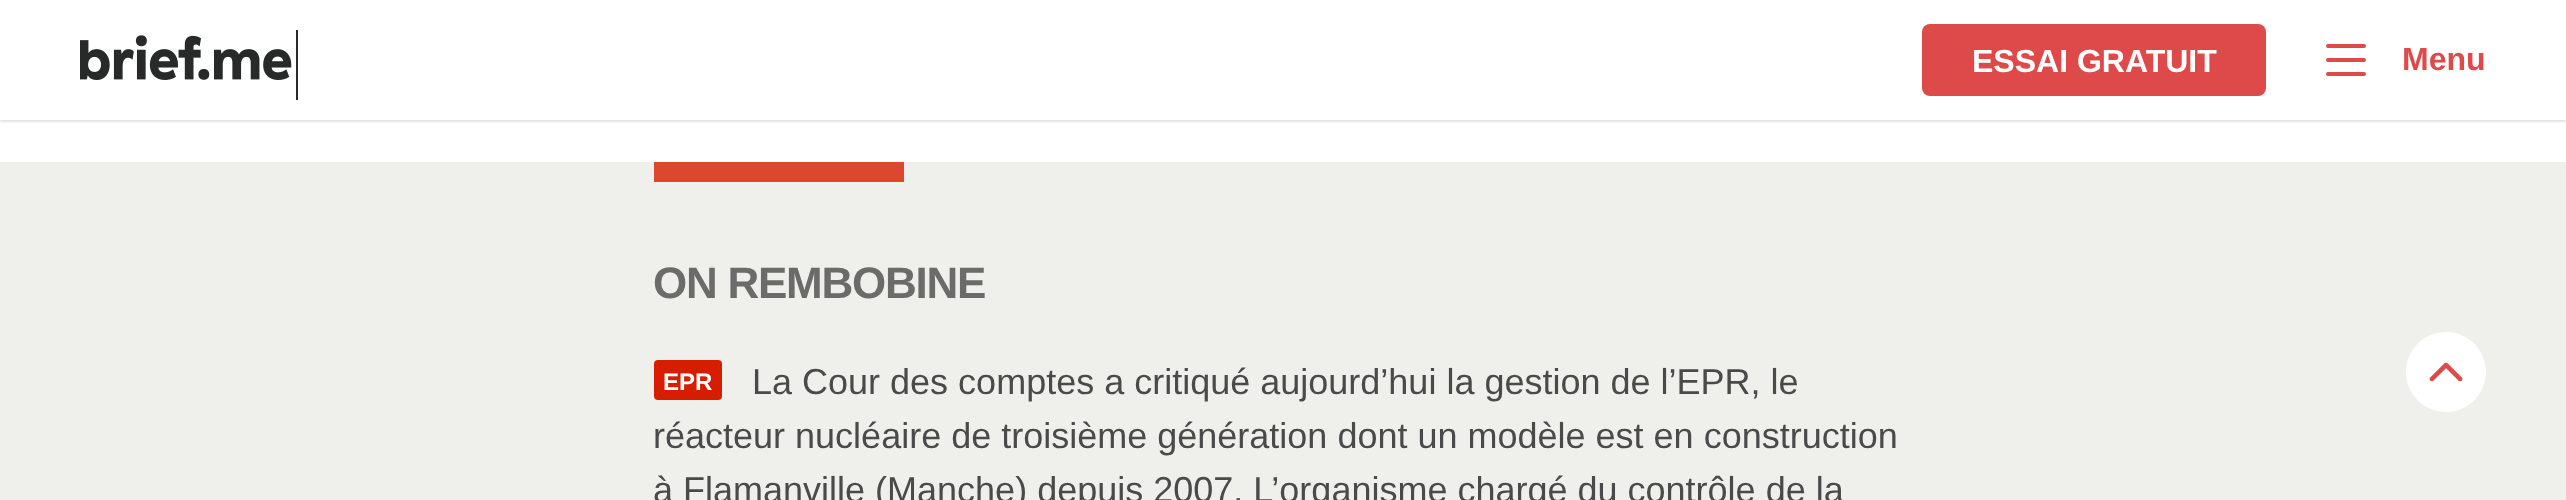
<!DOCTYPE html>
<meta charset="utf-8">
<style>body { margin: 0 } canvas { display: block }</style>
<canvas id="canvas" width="2566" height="500"></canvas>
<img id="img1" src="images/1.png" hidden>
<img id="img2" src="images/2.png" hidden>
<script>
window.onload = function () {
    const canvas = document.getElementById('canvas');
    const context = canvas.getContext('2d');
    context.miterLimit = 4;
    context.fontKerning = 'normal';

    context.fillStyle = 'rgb(255, 255, 255)';
    context.fillRect(0, 0, 2566, 500);
    context.save();
    context.beginPath();
    context.rect(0, 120, 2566, 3);
    context.clip();
    context.fillStyle = 'rgba(0, 0, 0, 0.11)';
    context.filter = 'blur(1px)';
    context.beginPath();
    context.rect(0, 2, 2566, 120);
    context.fill();
    context.filter = 'none';
    context.restore();
    context.drawImage(document.getElementById('img1'), 80, 30, 218, 70);
    context.fillStyle = 'rgb(222, 73, 73)';
    context.beginPath();
    context.roundRect(1922, 24, 344, 72, 8);
    context.fill();
    context.beginPath();
    context.roundRect(2326, 44, 40, 4, 2);
    context.fill();
    context.beginPath();
    context.roundRect(2326, 58, 40, 4, 2);
    context.fill();
    context.beginPath();
    context.roundRect(2326, 72, 40, 4, 2);
    context.fill();
    context.fillStyle = 'rgb(239, 239, 236)';
    context.fillRect(0, 162, 2566, 338);
    context.fillStyle = 'rgb(219, 71, 47)';
    context.fillRect(654, 162, 250, 20);
    context.fillStyle = 'rgb(214, 29, 0)';
    context.beginPath();
    context.roundRect(654, 360, 68, 40, 4);
    context.fill();
    context.drawImage(document.getElementById('img2'), 2406, 332, 80, 80);
    context.font = 'bold 32px Liberation Sans';
    context.fillStyle = 'rgb(255, 255, 255)';
    context.fillText('ESSAI GRATUIT', 1972, 72);
    context.fillStyle = 'rgb(222, 73, 73)';
    context.fillText('Menu', 2402, 70);
    context.letterSpacing = '-1.25px';
    context.font = 'bold 44px Liberation Sans';
    context.fillStyle = 'rgb(107, 107, 106)';
    context.fillText('ON REMBOBINE', 653, 298);
    context.letterSpacing = '0px';
    context.font = 'bold 24px Liberation Sans';
    context.fillStyle = 'rgb(255, 255, 255)';
    context.fillText('EPR', 663, 390);
    context.font = '36px Liberation Sans';
    context.fillStyle = 'rgb(74, 74, 74)';
    context.fillText('La Cour des comptes a critiqué aujourd’hui la gestion de l’EPR, le', 752, 394);
    context.fillText('réacteur nucléaire de troisième génération dont un modèle est en construction', 653, 448);
    context.fillText('à Flamanville (Manche) depuis 2007. L’organisme chargé du contrôle de la', 653, 502);
};
</script>
